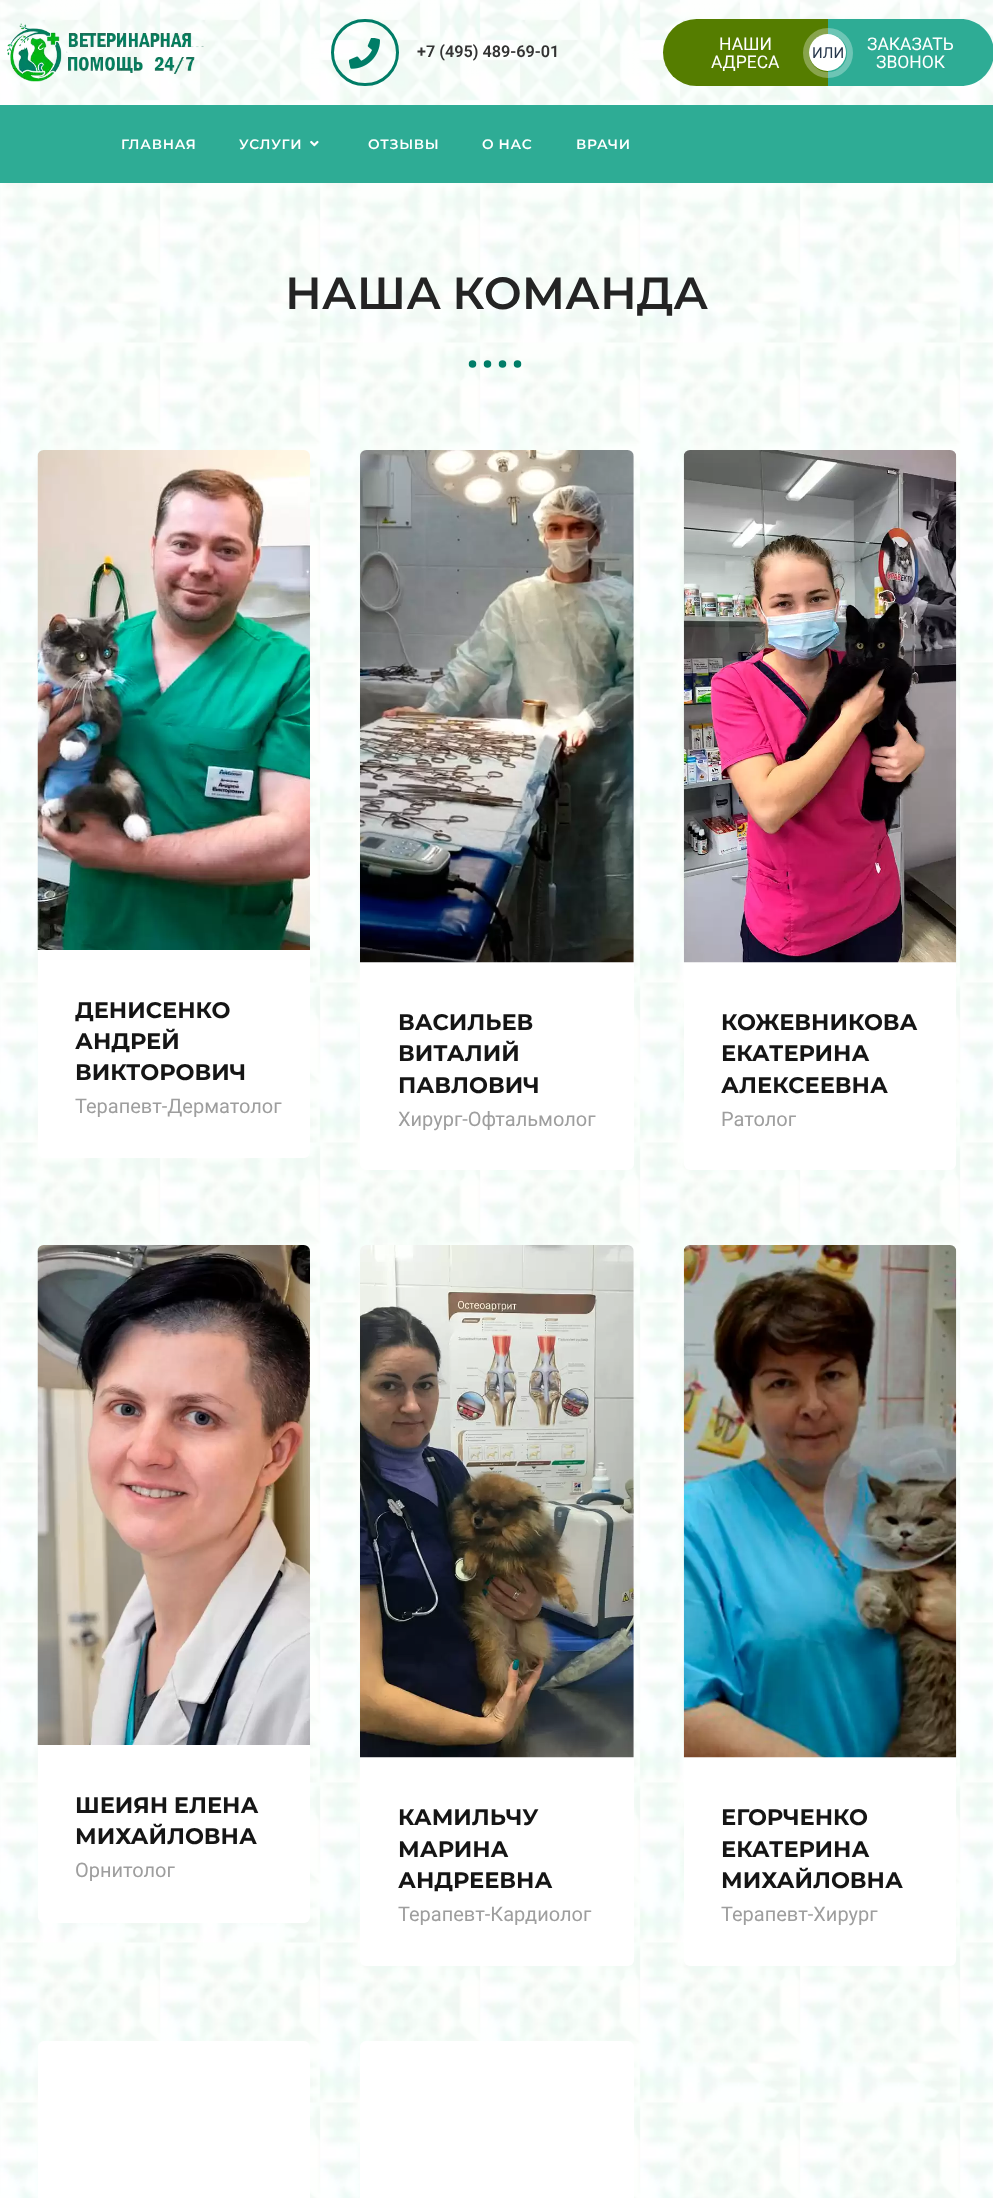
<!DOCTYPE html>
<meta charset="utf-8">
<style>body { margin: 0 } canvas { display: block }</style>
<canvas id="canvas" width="993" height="2198"></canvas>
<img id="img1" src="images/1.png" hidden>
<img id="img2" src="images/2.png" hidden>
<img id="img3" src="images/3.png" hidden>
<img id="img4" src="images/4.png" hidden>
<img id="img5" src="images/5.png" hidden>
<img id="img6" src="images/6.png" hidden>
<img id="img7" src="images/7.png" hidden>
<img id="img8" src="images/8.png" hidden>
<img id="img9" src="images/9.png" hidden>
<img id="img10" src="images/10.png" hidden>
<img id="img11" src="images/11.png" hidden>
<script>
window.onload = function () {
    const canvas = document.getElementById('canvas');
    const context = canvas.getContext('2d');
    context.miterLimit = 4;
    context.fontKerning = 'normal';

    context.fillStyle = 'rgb(255, 255, 255)';
    context.fillRect(0, 0, 993, 2198);
    context.drawImage(document.getElementById('img1'), 0, 0, 993, 105);
    context.drawImage(document.getElementById('img2'), 7, 23, 197, 59);
    context.beginPath();
    context.roundRect(332.5, 20.5, 65, 64, 32);
    context.strokeStyle = 'rgb(0, 125, 103)';
    context.lineWidth = 3;
    context.stroke();
    context.drawImage(document.getElementById('img3'), 349, 38, 31, 31);
    context.fillStyle = 'rgb(85, 125, 0)';
    context.beginPath();
    context.roundRect(663, 19, 165, 67, [33.5, 0, 0, 33.5]);
    context.fill();
    context.fillStyle = 'rgb(46, 172, 149)';
    context.beginPath();
    context.moveTo(828, 19);
    context.lineTo(960.5, 19);
    context.bezierCurveTo(979, 19, 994, 34, 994, 52.5);
    context.bezierCurveTo(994, 71, 979, 86, 960.5, 86);
    context.lineTo(828, 86);
    context.closePath();
    context.fill();
    context.beginPath();
    context.arc(828, 53, 22, 0, 2 * Math.PI);
    context.strokeStyle = 'rgba(255, 255, 255, 0.3)';
    context.lineWidth = 6;
    context.stroke();
    context.fillStyle = 'rgb(255, 255, 255)';
    context.beginPath();
    context.arc(827.5, 52.5, 18.5, 0, 2 * Math.PI);
    context.fill();
    context.fillStyle = 'rgb(46, 172, 149)';
    context.fillRect(0, 105, 993, 78);
    context.drawImage(document.getElementById('img4'), 310, 140, 9, 7);
    context.drawImage(document.getElementById('img5'), 0, 183, 993, 2015);
    context.beginPath();
    context.moveTo(472.5, 364);
    context.lineTo(522.5, 364);
    context.strokeStyle = 'rgb(0, 125, 103)';
    context.lineWidth = 7.5;
    context.lineCap = 'round';
    context.setLineDash([0, 15]);
    context.stroke();
    context.fillStyle = 'rgb(255, 255, 255)';
    context.beginPath();
    context.roundRect(38, 450, 272, 708, 6);
    context.fill();
    context.drawImage(document.getElementById('img6'), 37, 450, 273, 500);
    context.beginPath();
    context.roundRect(360, 450, 274, 720, 6);
    context.fill();
    context.drawImage(document.getElementById('img7'), 360, 450, 274, 513);
    context.beginPath();
    context.roundRect(684, 450, 272, 720, 6);
    context.fill();
    context.drawImage(document.getElementById('img8'), 683, 450, 274, 513);
    context.beginPath();
    context.roundRect(38, 1245, 272, 678, 6);
    context.fill();
    context.drawImage(document.getElementById('img9'), 37, 1245, 273, 500);
    context.beginPath();
    context.roundRect(360, 1245, 274, 721, 6);
    context.fill();
    context.drawImage(document.getElementById('img10'), 360, 1245, 274, 513);
    context.beginPath();
    context.roundRect(684, 1245, 272, 721, 6);
    context.fill();
    context.drawImage(document.getElementById('img11'), 683, 1245, 274, 513);
    context.beginPath();
    context.roundRect(38, 2041, 272, 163, 6);
    context.fill();
    context.beginPath();
    context.roundRect(360, 2041, 274, 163, 6);
    context.fill();
    context.font = '600 16.25px Roboto';
    context.fillStyle = 'rgb(51, 51, 51)';
    context.fillText('+7 (495) 489-69-01', 417, 57);
    context.font = '17.5px Roboto';
    context.fillStyle = 'rgb(255, 255, 255)';
    context.fillText('НАШИ', 719, 50);
    context.fillText('АДРЕСА', 711, 68);
    context.font = '15px Roboto';
    context.fillStyle = 'rgb(39, 55, 76)';
    context.fillText('ИЛИ', 812, 58);
    context.font = '17.5px Roboto';
    context.fillStyle = 'rgb(255, 255, 255)';
    context.fillText('ЗАКАЗАТЬ', 867, 50);
    context.fillText('ЗВОНОК', 876, 68);
    context.letterSpacing = '0.75px';
    context.font = '600 13.75px Montserrat';
    context.fillText('ГЛАВНАЯ', 121, 149);
    context.fillText('УСЛУГИ', 239, 149);
    context.fillText('ОТЗЫВЫ', 368, 149);
    context.fillText('О НАС', 482, 149);
    context.fillText('ВРАЧИ', 576, 149);
    context.letterSpacing = '0px';
    context.font = '600 45px Montserrat';
    context.fillStyle = 'rgb(36, 36, 36)';
    context.fillText('НАША КОМАНДА', 285, 309);
    context.font = 'bold 22.5px Montserrat';
    context.fillStyle = 'rgb(21, 21, 21)';
    context.fillText('ДЕНИСЕНКО', 75, 1018);
    context.fillText('АНДРЕЙ', 75, 1049);
    context.fillText('ВИКТОРОВИЧ', 75, 1080);
    context.font = '20px Roboto';
    context.fillStyle = 'rgb(158, 158, 158)';
    context.fillText('Терапевт-Дерматолог', 75, 1113);
    context.font = 'bold 22.5px Montserrat';
    context.fillStyle = 'rgb(21, 21, 21)';
    context.fillText('ВАСИЛЬЕВ', 398, 1030);
    context.fillText('ВИТАЛИЙ', 398, 1061);
    context.fillText('ПАВЛОВИЧ', 398, 1093);
    context.font = '20px Roboto';
    context.fillStyle = 'rgb(158, 158, 158)';
    context.fillText('Хирург-Офтальмолог', 398, 1126);
    context.font = 'bold 22.5px Montserrat';
    context.fillStyle = 'rgb(21, 21, 21)';
    context.fillText('КОЖЕВНИКОВА', 721, 1030);
    context.fillText('ЕКАТЕРИНА', 721, 1061);
    context.fillText('АЛЕКСЕЕВНА', 721, 1093);
    context.font = '20px Roboto';
    context.fillStyle = 'rgb(158, 158, 158)';
    context.fillText('Ратолог', 721, 1126);
    context.font = 'bold 22.5px Montserrat';
    context.fillStyle = 'rgb(21, 21, 21)';
    context.fillText('ШЕИЯН ЕЛЕНА', 75, 1813);
    context.fillText('МИХАЙЛОВНА', 75, 1844);
    context.font = '20px Roboto';
    context.fillStyle = 'rgb(158, 158, 158)';
    context.fillText('Орнитолог', 75, 1877);
    context.font = 'bold 22.5px Montserrat';
    context.fillStyle = 'rgb(21, 21, 21)';
    context.fillText('КАМИЛЬЧУ', 398, 1825);
    context.fillText('МАРИНА', 398, 1857);
    context.fillText('АНДРЕЕВНА', 398, 1888);
    context.font = '20px Roboto';
    context.fillStyle = 'rgb(158, 158, 158)';
    context.fillText('Терапевт-Кардиолог', 398, 1921);
    context.font = 'bold 22.5px Montserrat';
    context.fillStyle = 'rgb(21, 21, 21)';
    context.fillText('ЕГОРЧЕНКО', 721, 1825);
    context.fillText('ЕКАТЕРИНА', 721, 1857);
    context.fillText('МИХАЙЛОВНА', 721, 1888);
    context.font = '20px Roboto';
    context.fillStyle = 'rgb(158, 158, 158)';
    context.fillText('Терапевт-Хирург', 721, 1921);
};
</script>
